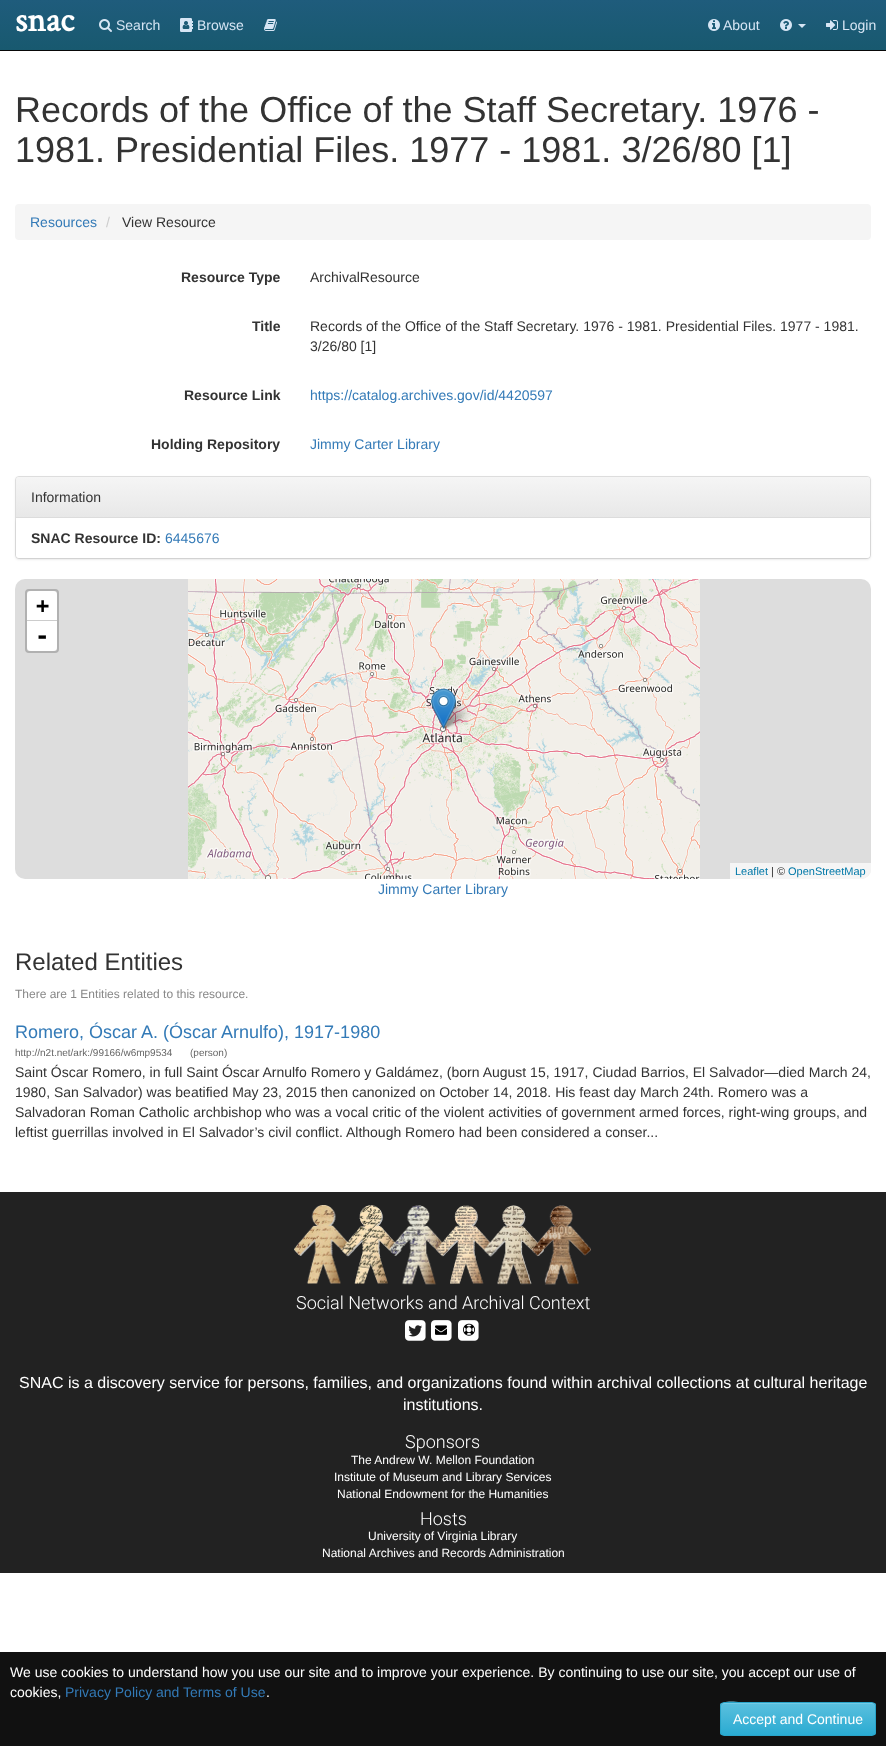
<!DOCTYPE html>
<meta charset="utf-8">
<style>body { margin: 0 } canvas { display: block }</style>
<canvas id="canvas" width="886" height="1746"></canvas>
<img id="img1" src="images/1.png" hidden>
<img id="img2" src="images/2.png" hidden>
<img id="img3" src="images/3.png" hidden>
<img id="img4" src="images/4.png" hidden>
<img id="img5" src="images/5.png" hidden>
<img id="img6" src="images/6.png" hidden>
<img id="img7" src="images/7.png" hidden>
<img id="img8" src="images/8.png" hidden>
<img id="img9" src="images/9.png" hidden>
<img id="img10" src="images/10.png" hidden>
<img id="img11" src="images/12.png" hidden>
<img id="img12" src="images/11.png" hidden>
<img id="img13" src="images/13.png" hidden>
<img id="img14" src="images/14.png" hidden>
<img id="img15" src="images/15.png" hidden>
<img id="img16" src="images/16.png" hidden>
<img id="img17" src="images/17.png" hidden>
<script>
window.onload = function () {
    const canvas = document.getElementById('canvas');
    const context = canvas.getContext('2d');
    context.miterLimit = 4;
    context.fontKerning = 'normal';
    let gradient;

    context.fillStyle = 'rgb(255, 255, 255)';
    context.fillRect(0, 0, 886, 1746);
    gradient = context.createLinearGradient(443, 0, 443, 50);
    gradient.addColorStop(0, 'rgb(31, 92, 124)');
    gradient.addColorStop(1, 'rgb(24, 89, 111)');
    context.fillStyle = gradient;
    context.fillRect(0, 0, 886, 50);
    context.fillStyle = 'rgb(8, 8, 8)';
    context.fillRect(0, 50, 886, 1);
    context.drawImage(document.getElementById('img1'), 99, 19, 13, 13);
    context.drawImage(document.getElementById('img2'), 180, 18, 13, 14);
    context.drawImage(document.getElementById('img3'), 264, 19, 13, 12);
    context.drawImage(document.getElementById('img4'), 708, 19, 12, 12);
    context.drawImage(document.getElementById('img5'), 780, 19, 12, 12);
    context.fillStyle = 'rgb(214, 229, 244)';
    context.beginPath();
    context.moveTo(798, 24);
    context.lineTo(806, 24);
    context.lineTo(802, 28);
    context.closePath();
    context.fill();
    context.drawImage(document.getElementById('img6'), 826, 20, 12, 10);
    context.fillStyle = 'rgb(245, 245, 245)';
    context.beginPath();
    context.roundRect(15, 204, 856, 36, 4);
    context.fill();
    context.fillStyle = 'rgba(0, 0, 0, 0.05)';
    context.filter = 'blur(1px)';
    context.beginPath();
    context.roundRect(15, 477, 856, 83, 4);
    context.fill();
    context.filter = 'none';
    context.beginPath();
    context.roundRect(15.5, 476.5, 855, 82, 3.5);
    context.strokeStyle = 'rgb(221, 221, 221)';
    context.stroke();
    gradient = context.createLinearGradient(443, 477, 443, 517);
    gradient.addColorStop(0, 'rgb(245, 245, 245)');
    gradient.addColorStop(1, 'rgb(232, 232, 232)');
    context.fillStyle = gradient;
    context.beginPath();
    context.roundRect(16, 477, 854, 40, [3, 3, 0, 0]);
    context.fill();
    context.fillStyle = 'rgb(221, 221, 221)';
    context.fillRect(16, 517, 854, 1);
    context.fillStyle = 'rgba(0, 0, 0, 0.07)';
    context.filter = 'blur(1px)';
    context.beginPath();
    context.roundRect(16, 519, 854, 40, 4);
    context.fill();
    context.filter = 'none';
    context.fillStyle = 'rgb(255, 255, 255)';
    context.beginPath();
    context.roundRect(16, 518, 854, 40, [0, 0, 3, 3]);
    context.fill();
    context.fillStyle = 'rgb(221, 221, 221)';
    context.beginPath();
    context.roundRect(15, 579, 856, 300, 10);
    context.fill();
    context.drawImage(document.getElementById('img7'), 188, 579, 256, 89);
    context.drawImage(document.getElementById('img8'), 444, 579, 256, 89);
    context.drawImage(document.getElementById('img9'), 188, 668, 256, 211);
    context.drawImage(document.getElementById('img10'), 444, 668, 256, 211);
    context.drawImage(document.getElementById('img11'), 441, 701, 29, 28);
    context.drawImage(document.getElementById('img12'), 431, 688, 25, 41);
    context.beginPath();
    context.roundRect(26, 590, 32, 62, 3);
    context.strokeStyle = 'rgb(177, 177, 177)';
    context.lineWidth = 2;
    context.stroke();
    context.fillStyle = 'rgb(255, 255, 255)';
    context.beginPath();
    context.roundRect(27, 591, 30, 30, [4, 4, 0, 0]);
    context.fill();
    context.fillStyle = 'rgb(204, 204, 204)';
    context.fillRect(27, 620, 30, 1);
    context.fillStyle = 'rgb(255, 255, 255)';
    context.beginPath();
    context.roundRect(27, 621, 30, 30, [0, 0, 4, 4]);
    context.fill();
    context.fillStyle = 'rgba(255, 255, 255, 0.7)';
    context.beginPath();
    context.roundRect(730, 863, 141, 16, [0, 0, 10, 0]);
    context.fill();
    context.fillStyle = 'rgb(34, 34, 34)';
    context.fillRect(0, 1192, 886, 381);
    context.drawImage(document.getElementById('img13'), 294, 1205, 297, 80);
    context.drawImage(document.getElementById('img14'), 405, 1320, 21, 21);
    context.drawImage(document.getElementById('img15'), 431, 1320, 21, 21);
    context.drawImage(document.getElementById('img16'), 435, 1325, 12, 10);
    context.drawImage(document.getElementById('img15'), 458, 1320, 21, 21);
    context.drawImage(document.getElementById('img17'), 463, 1323, 12, 13);
    context.fillStyle = 'rgb(17, 17, 17)';
    context.fillRect(0, 1652, 886, 94);
    context.save();
    context.beginPath();
    context.roundRect(720, 1702, 156, 34, 4);
    context.clip();
    gradient = context.createLinearGradient(798, 1703, 798, 1735);
    gradient.addColorStop(0, 'rgb(91, 192, 222)');
    gradient.addColorStop(1, 'rgb(42, 171, 210)');
    context.fillStyle = gradient;
    context.fillRect(720, 1703, 156, 32);
    context.restore();
    context.fillStyle = 'rgb(115, 201, 227)';
    context.beginPath();
    context.moveTo(724, 1704);
    context.lineTo(872, 1704);
    context.bezierCurveTo(874, 1704, 875, 1705, 875, 1707);
    context.bezierCurveTo(875, 1705, 875, 1704, 873, 1703);
    context.lineTo(749, 1703);
    context.bezierCurveTo(741, 1703, 721, 1698, 721, 1707);
    context.bezierCurveTo(721, 1705, 722, 1704, 724, 1704);
    context.closePath();
    context.fill();
    context.beginPath();
    context.roundRect(720.5, 1702.5, 155, 33, 3.5);
    context.strokeStyle = 'rgb(40, 164, 201)';
    context.lineWidth = 1;
    context.stroke();
    context.font = 'bold 35px Crimson Text';
    context.fillStyle = 'rgb(255, 255, 255)';
    context.fillText('snac', 15, 31);
    context.font = '14px Liberation Sans';
    context.fillStyle = 'rgb(214, 229, 244)';
    context.fillText('Search', 116, 30);
    context.fillText('Browse', 197, 30);
    context.fillText('About', 723, 30);
    context.fillText('Login', 842, 30);
    context.font = '36px Liberation Sans';
    context.fillStyle = 'rgb(51, 51, 51)';
    context.fillText('Records of the Office of the Staff Secretary. 1976 -', 15, 122);
    context.fillText('1981. Presidential Files. 1977 - 1981. 3/26/80 [1]', 15, 162);
    context.font = '14px Liberation Sans';
    context.fillStyle = 'rgb(51, 122, 183)';
    context.fillText('Resources', 30, 227);
    context.fillStyle = 'rgb(204, 204, 204)';
    context.fillText('/', 106, 227);
    context.fillStyle = 'rgb(51, 51, 51)';
    context.fillText('View Resource', 122, 227);
    context.font = 'bold 14px Liberation Sans';
    context.fillText('Resource Type', 181, 282);
    context.font = '14px Liberation Sans';
    context.fillText('ArchivalResource', 310, 282);
    context.font = 'bold 14px Liberation Sans';
    context.fillText('Title', 252, 331);
    context.font = '14px Liberation Sans';
    context.fillText('Records of the Office of the Staff Secretary. 1976 - 1981. Presidential Files. 1977 - 1981.', 310, 331);
    context.fillText('3/26/80 [1]', 310, 351);
    context.font = 'bold 14px Liberation Sans';
    context.fillText('Resource Link', 184, 400);
    context.font = '14px Liberation Sans';
    context.fillStyle = 'rgb(51, 122, 183)';
    context.fillText('https://catalog.archives.gov/id/4420597', 310, 400);
    context.font = 'bold 14px Liberation Sans';
    context.fillStyle = 'rgb(51, 51, 51)';
    context.fillText('Holding Repository', 151, 449);
    context.font = '14px Liberation Sans';
    context.fillStyle = 'rgb(51, 122, 183)';
    context.fillText('Jimmy Carter Library', 310, 449);
    context.fillStyle = 'rgb(51, 51, 51)';
    context.fillText('Information', 31, 502);
    context.font = 'bold 14px Liberation Sans';
    context.fillText('SNAC Resource ID:', 31, 543);
    context.font = '14px Liberation Sans';
    context.fillStyle = 'rgb(51, 122, 183)';
    context.fillText('6445676', 165, 543);
    context.font = 'bold 22px DejaVu Sans Mono';
    context.fillStyle = 'rgb(0, 0, 0)';
    context.fillText('+', 36, 613);
    context.font = 'bold 24px DejaVu Sans Mono';
    context.fillText('-', 35, 644);
    context.font = '11px Liberation Sans';
    context.fillStyle = 'rgb(0, 120, 168)';
    context.fillText('Leaflet', 735, 875);
    context.fillStyle = 'rgb(51, 51, 51)';
    context.fillText('| ©', 771, 875);
    context.fillStyle = 'rgb(0, 120, 168)';
    context.fillText('OpenStreetMap', 788, 875);
    context.font = '14px Liberation Sans';
    context.fillStyle = 'rgb(51, 122, 183)';
    context.fillText('Jimmy Carter Library', 378, 894);
    context.font = '24px Liberation Sans';
    context.fillStyle = 'rgb(51, 51, 51)';
    context.fillText('Related Entities', 15, 970);
    context.font = '12px Liberation Sans';
    context.fillStyle = 'rgb(136, 136, 136)';
    context.fillText('There are 1 Entities related to this resource.', 15, 998);
    context.font = '18px Liberation Sans';
    context.fillStyle = 'rgb(51, 122, 183)';
    context.fillText('Romero, Óscar A. (Óscar Arnulfo), 1917-1980', 15, 1038);
    context.font = '10px Liberation Sans';
    context.fillStyle = 'rgb(102, 102, 102)';
    context.fillText('http://n2t.net/ark:/99166/w6mp9534', 15, 1056);
    context.fillText('(person)', 190, 1056);
    context.font = '14px Liberation Sans';
    context.fillStyle = 'rgb(51, 51, 51)';
    context.fillText('Saint Óscar Romero, in full Saint Óscar Arnulfo Romero y Galdámez, (born August 15, 1917, Ciudad Barrios, El Salvador—died March 24,', 15, 1077);
    context.fillText('1980, San Salvador) was beatified May 23, 2015 then canonized on October 14, 2018. His feast day March 24th. Romero was a', 15, 1097);
    context.fillText('Salvadoran Roman Catholic archbishop who was a vocal critic of the violent activities of government armed forces, right-wing groups, and', 15, 1117);
    context.fillText('leftist guerrillas involved in El Salvador’s civil conflict. Although Romero had been considered a conser...', 15, 1137);
    context.font = '300 18px Roboto';
    context.fillStyle = 'rgb(255, 255, 255)';
    context.fillText('Social Networks and Archival Context', 296, 1309);
    context.font = '16px Liberation Sans';
    context.fillText('SNAC is a discovery service for persons, families, and organizations found within archival collections at cultural heritage', 19, 1388);
    context.fillText('institutions.', 403, 1410);
    context.font = '300 18px Roboto';
    context.fillText('Sponsors', 405, 1448);
    context.font = '12px Liberation Sans';
    context.fillText('The Andrew W. Mellon Foundation', 351, 1464);
    context.fillText('Institute of Museum and Library Services', 334, 1481);
    context.fillText('National Endowment for the Humanities', 337, 1498);
    context.font = '300 18px Roboto';
    context.fillText('Hosts', 420, 1525);
    context.font = '12px Liberation Sans';
    context.fillText('University of Virginia Library', 368, 1540);
    context.fillText('National Archives and Records Administration', 322, 1557);
    context.font = '14px Liberation Sans';
    context.fillText('We use cookies to understand how you use our site and to improve your experience. By continuing to use our site, you accept our use of', 10, 1677);
    context.fillText('cookies,', 10, 1697);
    context.fillStyle = 'rgb(51, 122, 183)';
    context.fillText('Privacy Policy and Terms of Use', 65, 1697);
    context.fillStyle = 'rgb(255, 255, 255)';
    context.fillText('.', 266, 1697);
    context.fillText('Accept and Continue', 733, 1724);
};
</script>
